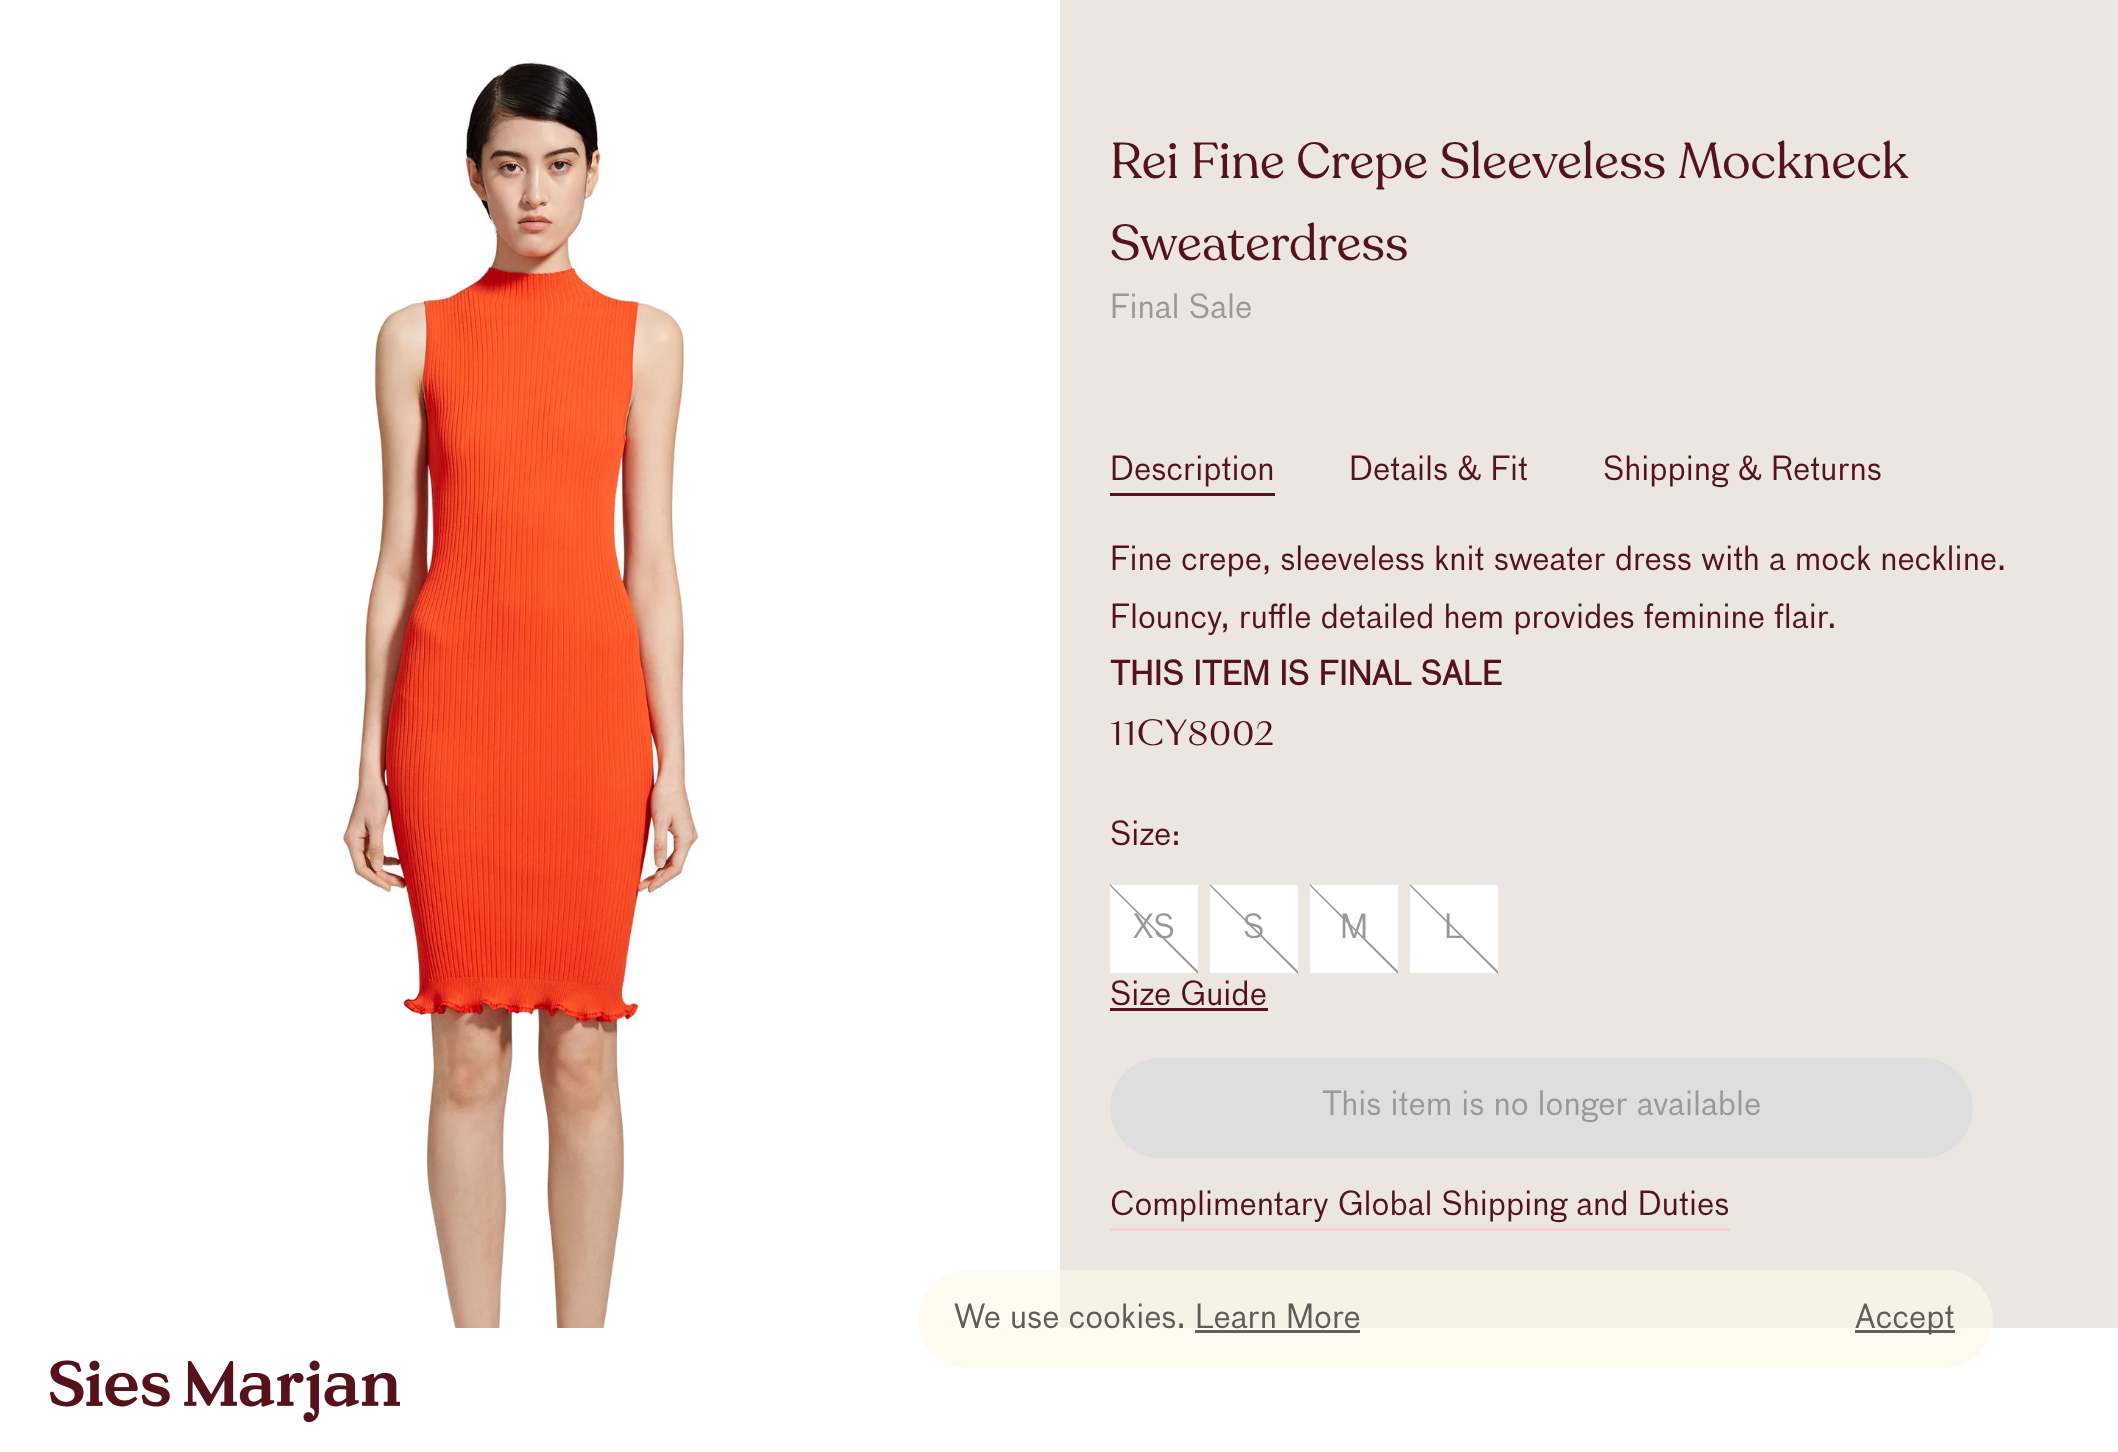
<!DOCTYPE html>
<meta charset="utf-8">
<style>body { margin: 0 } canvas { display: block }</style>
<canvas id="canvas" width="2118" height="1452"></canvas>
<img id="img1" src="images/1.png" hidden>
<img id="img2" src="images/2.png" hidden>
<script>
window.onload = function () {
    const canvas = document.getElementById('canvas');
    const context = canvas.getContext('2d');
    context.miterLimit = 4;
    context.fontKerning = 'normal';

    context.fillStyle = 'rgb(235, 231, 224)';
    context.fillRect(0, 0, 2118, 1452);
    context.drawImage(document.getElementById('img1'), 0, 0, 1060, 1328);
    context.fillStyle = 'rgb(86, 18, 27)';
    context.fillRect(1110, 493, 165, 3);
    context.fillStyle = 'rgb(255, 255, 255)';
    context.fillRect(1110, 885, 88, 88);
    context.fillStyle = 'rgb(153, 153, 153)';
    context.beginPath();
    context.moveTo(1110, 884);
    context.lineTo(1198, 971);
    context.lineTo(1198, 974);
    context.lineTo(1110, 886);
    context.closePath();
    context.fill();
    context.fillStyle = 'rgb(255, 255, 255)';
    context.fillRect(1210, 885, 88, 88);
    context.fillStyle = 'rgb(153, 153, 153)';
    context.beginPath();
    context.moveTo(1210, 884);
    context.lineTo(1298, 971);
    context.lineTo(1298, 974);
    context.lineTo(1210, 886);
    context.closePath();
    context.fill();
    context.fillStyle = 'rgb(255, 255, 255)';
    context.fillRect(1310, 885, 88, 88);
    context.fillStyle = 'rgb(153, 153, 153)';
    context.beginPath();
    context.moveTo(1310, 884);
    context.lineTo(1398, 971);
    context.lineTo(1398, 974);
    context.lineTo(1310, 886);
    context.closePath();
    context.fill();
    context.fillStyle = 'rgb(255, 255, 255)';
    context.fillRect(1410, 885, 88, 88);
    context.fillStyle = 'rgb(153, 153, 153)';
    context.beginPath();
    context.moveTo(1410, 884);
    context.lineTo(1498, 971);
    context.lineTo(1498, 974);
    context.lineTo(1410, 886);
    context.closePath();
    context.fill();
    context.fillStyle = 'rgb(86, 18, 27)';
    context.fillRect(1110, 1008, 158, 3);
    context.fillStyle = 'rgb(222, 222, 222)';
    context.beginPath();
    context.roundRect(1110, 1058, 863, 100, 50);
    context.fill();
    context.fillStyle = 'rgb(255, 207, 207)';
    context.fillRect(1110, 1228, 620, 3);
    context.fillStyle = 'rgb(255, 255, 255)';
    context.fillRect(0, 1328, 2118, 124);
    context.drawImage(document.getElementById('img2'), 50, 1360, 350, 63);
    context.fillStyle = 'rgba(255, 248, 233, 0.62)';
    context.beginPath();
    context.roundRect(918, 1270, 1075, 98, 49);
    context.fill();
    context.fillStyle = 'rgb(96, 96, 96)';
    context.fillRect(1195, 1330, 165, 3);
    context.fillRect(1855, 1330, 100, 3);
    context.letterSpacing = '0.25px';
    context.font = '50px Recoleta';
    context.fillStyle = 'rgb(86, 18, 27)';
    context.fillText('Rei Fine Crepe Sleeveless Mockneck', 1110, 178);
    context.fillText('Sweaterdress', 1110, 260);
    context.letterSpacing = '0px';
    context.font = '32.5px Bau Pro';
    context.fillStyle = 'rgb(153, 153, 153)';
    context.fillText('Final Sale', 1110, 318);
    context.fillStyle = 'rgb(86, 18, 27)';
    context.fillText('Description', 1110, 480);
    context.fillText('Details & Fit', 1349, 480);
    context.fillText('Shipping & Returns', 1603, 480);
    context.fillText('Fine crepe, sleeveless knit sweater dress with a mock neckline.', 1110, 570);
    context.fillText('Flouncy, ruffle detailed hem provides feminine flair.', 1110, 628);
    context.font = 'bold 32.5px Bau Pro';
    context.fillText('THIS ITEM IS FINAL SALE', 1110, 685);
    context.letterSpacing = '0.75px';
    context.font = '32.5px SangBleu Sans';
    context.fillText('11CY8002', 1110, 745);
    context.letterSpacing = '0px';
    context.font = '32.5px Bau Pro';
    context.fillText('Size:', 1110, 845);
    context.fillStyle = 'rgb(153, 153, 153)';
    context.fillText('XS', 1133, 938);
    context.fillText('S', 1243, 938);
    context.fillText('M', 1340, 938);
    context.fillText('L', 1444, 938);
    context.fillStyle = 'rgb(86, 18, 27)';
    context.fillText('Size Guide', 1110, 1005);
    context.fillStyle = 'rgb(153, 153, 153)';
    context.fillText('This item is no longer available', 1322, 1115);
    context.fillStyle = 'rgb(86, 18, 27)';
    context.fillText('Complimentary Global Shipping and Duties', 1110, 1215);
    context.fillStyle = 'rgb(95, 93, 89)';
    context.fillText('We use cookies.', 954, 1328);
    context.fillText('Learn More', 1195, 1328);
    context.fillText('Accept', 1855, 1328);
};
</script>
